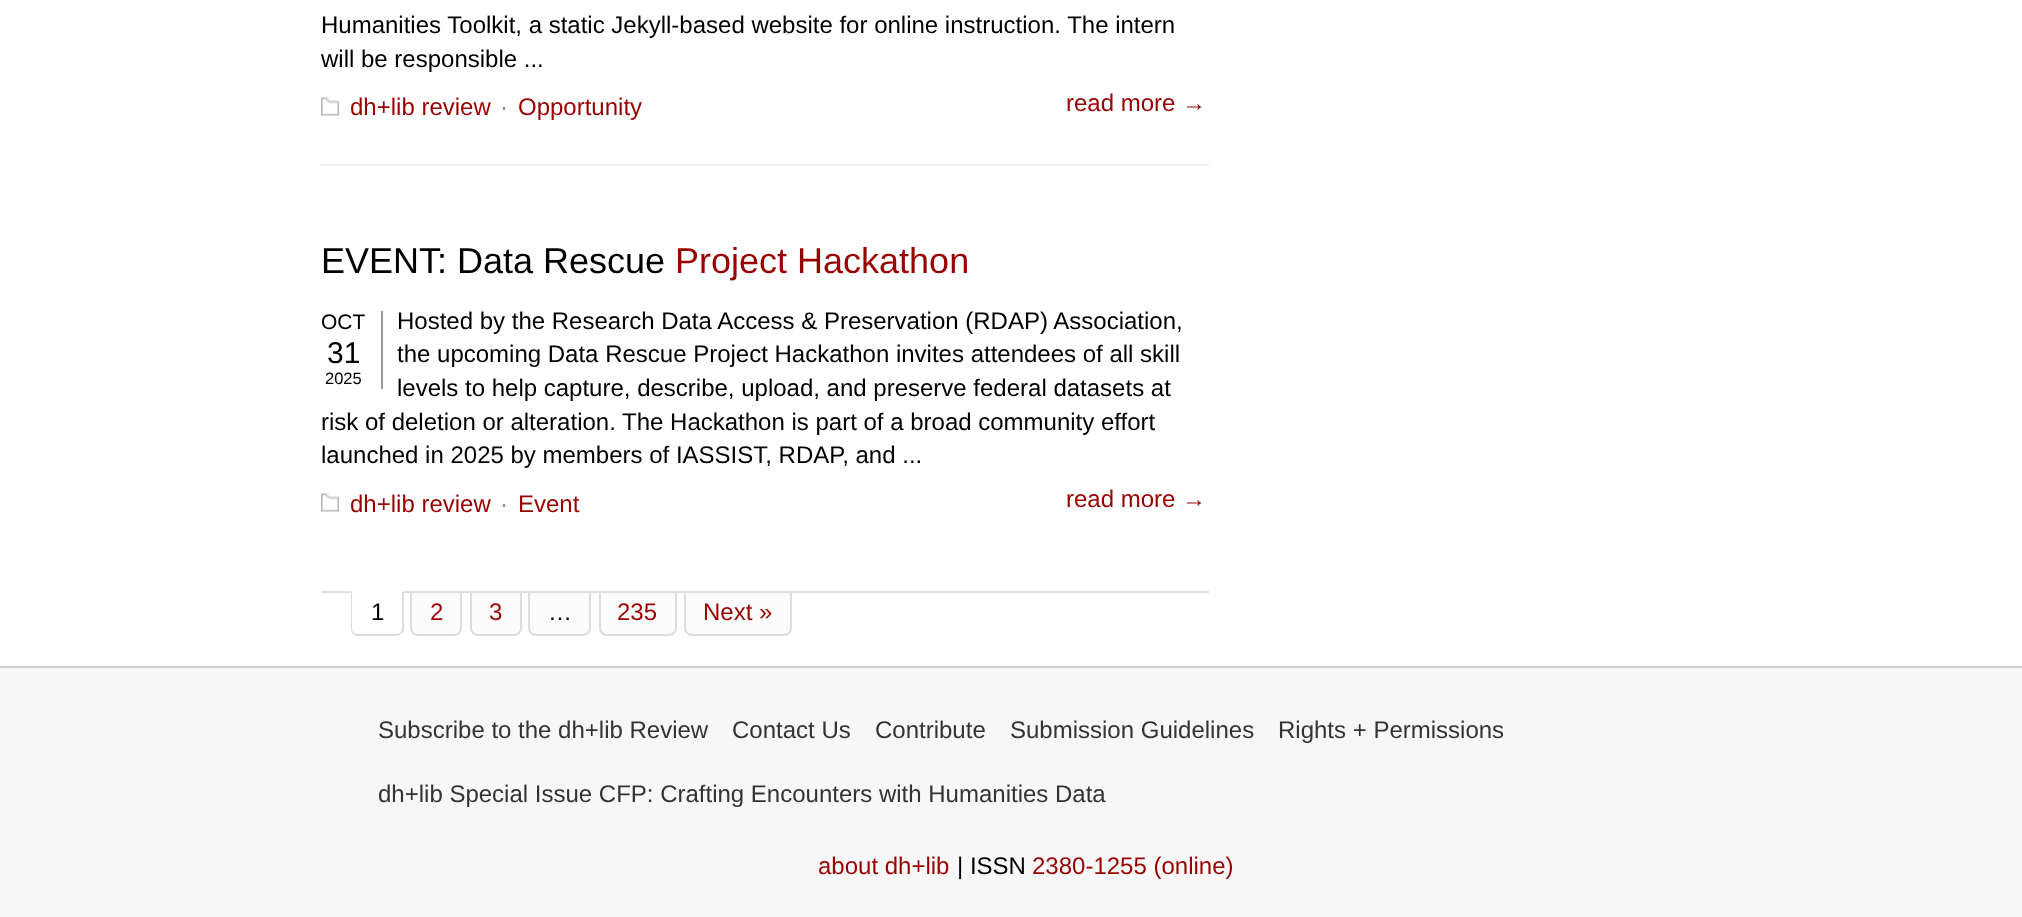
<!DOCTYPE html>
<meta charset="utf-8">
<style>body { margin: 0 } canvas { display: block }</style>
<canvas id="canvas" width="2022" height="917"></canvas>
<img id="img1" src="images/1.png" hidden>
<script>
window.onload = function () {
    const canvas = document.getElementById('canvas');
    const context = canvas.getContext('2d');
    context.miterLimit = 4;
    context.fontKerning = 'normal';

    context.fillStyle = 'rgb(255, 255, 255)';
    context.fillRect(0, 0, 2022, 917);
    context.drawImage(document.getElementById('img1'), 321, 97, 18, 19);
    context.fillStyle = 'rgb(238, 238, 238)';
    context.fillRect(321, 164, 888, 2);
    context.fillStyle = 'rgb(153, 153, 153)';
    context.fillRect(381, 311, 2, 78);
    context.drawImage(document.getElementById('img1'), 321, 493, 18, 19);
    context.fillStyle = 'rgb(221, 221, 221)';
    context.fillRect(321, 591, 888, 2);
    context.fillStyle = 'rgb(255, 255, 255)';
    context.beginPath();
    context.roundRect(351, 591, 53, 45, [0, 0, 8, 8]);
    context.fill();
    context.fillStyle = 'rgb(221, 221, 221)';
    context.beginPath();
    context.moveTo(404, 591);
    context.lineTo(404, 631);
    context.lineTo(401, 634);
    context.lineTo(400, 633);
    context.bezierCurveTo(401, 632, 402, 630, 402, 628);
    context.lineTo(402, 592);
    context.closePath();
    context.fill();
    context.beginPath();
    context.moveTo(358, 636);
    context.lineTo(396, 636);
    context.bezierCurveTo(398, 636, 400, 635, 401, 634);
    context.lineTo(400, 633);
    context.bezierCurveTo(399, 634, 397, 634, 396, 634);
    context.lineTo(358, 634);
    context.bezierCurveTo(357, 634, 355, 634, 354, 633);
    context.lineTo(353, 634);
    context.bezierCurveTo(354, 635, 356, 636, 358, 636);
    context.closePath();
    context.fill();
    context.beginPath();
    context.moveTo(352, 592);
    context.lineTo(351, 591);
    context.lineTo(351, 628);
    context.bezierCurveTo(351, 631, 352, 633, 353, 634);
    context.lineTo(354, 633);
    context.bezierCurveTo(353, 632, 352, 630, 352, 628);
    context.closePath();
    context.fill();
    context.fillStyle = 'rgb(252, 252, 252)';
    context.beginPath();
    context.roundRect(411, 592, 50, 43, [0, 0, 7, 7]);
    context.fill();
    context.strokeStyle = 'rgb(221, 221, 221)';
    context.lineWidth = 2;
    context.stroke();
    context.beginPath();
    context.roundRect(471, 592, 50, 43, [0, 0, 7, 7]);
    context.fill();
    context.stroke();
    context.beginPath();
    context.roundRect(529, 592, 61, 43, [0, 0, 7, 7]);
    context.fill();
    context.stroke();
    context.beginPath();
    context.roundRect(600, 592, 76, 43, [0, 0, 7, 7]);
    context.fill();
    context.stroke();
    context.beginPath();
    context.roundRect(685, 592, 106, 43, [0, 0, 7, 7]);
    context.fill();
    context.stroke();
    context.fillStyle = 'rgb(247, 247, 247)';
    context.fillRect(0, 668, 2022, 249);
    context.fillStyle = 'rgb(204, 204, 204)';
    context.fillRect(0, 666, 2022, 2);
    context.font = '24px Arimo';
    context.fillStyle = 'rgb(0, 0, 0)';
    context.fillText('Humanities Toolkit, a static Jekyll-based website for online instruction. The intern', 321, 33);
    context.fillText('will be responsible ...', 321, 67);
    context.fillStyle = 'rgb(153, 0, 0)';
    context.fillText('dh+lib review', 350, 115);
    context.fillStyle = 'rgb(128, 128, 128)';
    context.fillText('·', 500, 115);
    context.fillStyle = 'rgb(153, 0, 0)';
    context.fillText('Opportunity', 518, 115);
    context.fillText('read more', 1066, 111);
    context.font = '24px Liberation Sans';
    context.fillText('→', 1182, 111);
    context.font = '36px Liberation Sans';
    context.fillStyle = 'rgb(0, 0, 0)';
    context.fillText('EVENT: Data Rescue', 321, 273);
    context.fillStyle = 'rgb(153, 0, 0)';
    context.fillText('Project Hackathon', 675, 273);
    context.font = '21px Arimo';
    context.fillStyle = 'rgb(0, 0, 0)';
    context.fillText('OCT', 321, 329);
    context.font = '30px Arimo';
    context.fillText('31', 327, 363);
    context.font = '16.5px Arimo';
    context.fillText('2025', 325, 384);
    context.font = '24px Arimo';
    context.fillText('Hosted by the Research Data Access & Preservation (RDAP) Association,', 397, 329);
    context.fillText('the upcoming Data Rescue Project Hackathon invites attendees of all skill', 397, 362);
    context.fillText('levels to help capture, describe, upload, and preserve federal datasets at', 397, 396);
    context.fillText('risk of deletion or alteration. The Hackathon is part of a broad community effort', 321, 430);
    context.fillText('launched in 2025 by members of IASSIST, RDAP, and ...', 321, 463);
    context.fillStyle = 'rgb(153, 0, 0)';
    context.fillText('dh+lib review', 350, 512);
    context.fillStyle = 'rgb(128, 128, 128)';
    context.fillText('·', 500, 512);
    context.fillStyle = 'rgb(153, 0, 0)';
    context.fillText('Event', 518, 512);
    context.fillText('read more', 1066, 507);
    context.font = '24px Liberation Sans';
    context.fillText('→', 1182, 507);
    context.font = '24px Arimo';
    context.fillStyle = 'rgb(0, 0, 0)';
    context.fillText('1', 371, 620);
    context.fillStyle = 'rgb(153, 0, 0)';
    context.fillText('2', 430, 620);
    context.fillText('3', 489, 620);
    context.fillStyle = 'rgb(0, 0, 0)';
    context.fillText('…', 548, 620);
    context.fillStyle = 'rgb(153, 0, 0)';
    context.fillText('235', 617, 620);
    context.fillText('Next »', 703, 620);
    context.fillStyle = 'rgb(51, 51, 51)';
    context.fillText('Subscribe to the dh+lib Review', 378, 738);
    context.fillText('Contact Us', 732, 738);
    context.fillText('Contribute', 875, 738);
    context.fillText('Submission Guidelines', 1010, 738);
    context.fillText('Rights + Permissions', 1278, 738);
    context.fillText('dh+lib Special Issue CFP: Crafting Encounters with Humanities Data', 378, 802);
    context.fillStyle = 'rgb(153, 0, 0)';
    context.fillText('about dh+lib', 818, 874);
    context.fillStyle = 'rgb(0, 0, 0)';
    context.fillText('| ISSN', 957, 874);
    context.fillStyle = 'rgb(153, 0, 0)';
    context.fillText('2380-1255 (online)', 1032, 874);
};
</script>
